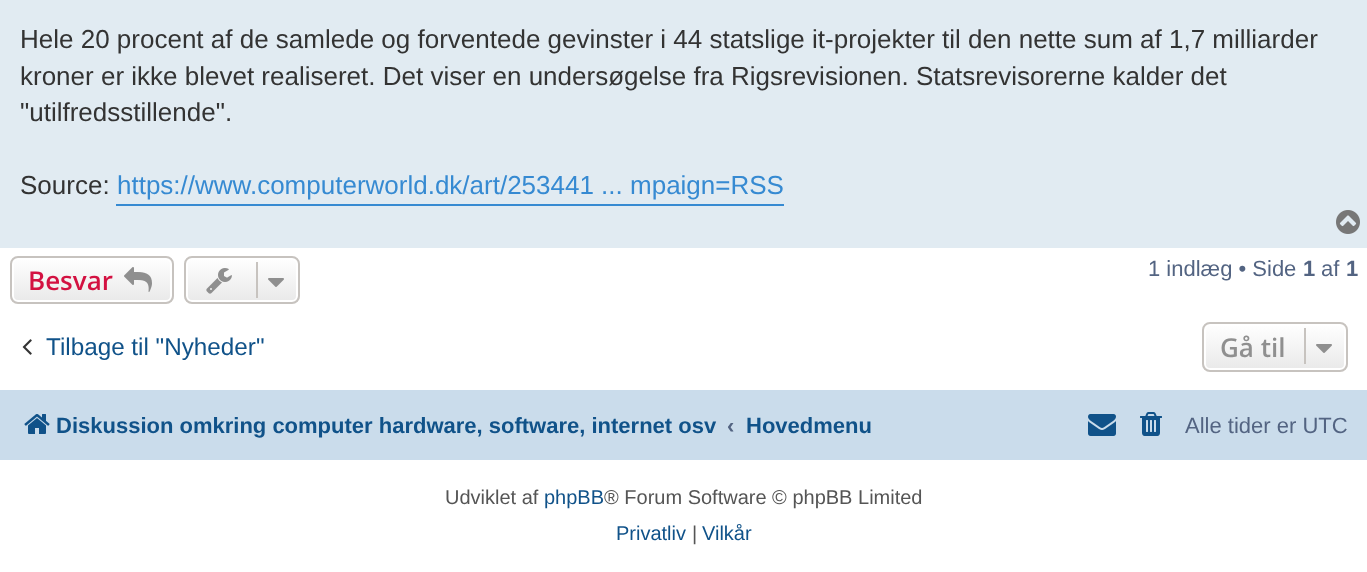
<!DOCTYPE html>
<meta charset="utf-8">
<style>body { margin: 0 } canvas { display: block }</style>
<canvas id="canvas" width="1367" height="572"></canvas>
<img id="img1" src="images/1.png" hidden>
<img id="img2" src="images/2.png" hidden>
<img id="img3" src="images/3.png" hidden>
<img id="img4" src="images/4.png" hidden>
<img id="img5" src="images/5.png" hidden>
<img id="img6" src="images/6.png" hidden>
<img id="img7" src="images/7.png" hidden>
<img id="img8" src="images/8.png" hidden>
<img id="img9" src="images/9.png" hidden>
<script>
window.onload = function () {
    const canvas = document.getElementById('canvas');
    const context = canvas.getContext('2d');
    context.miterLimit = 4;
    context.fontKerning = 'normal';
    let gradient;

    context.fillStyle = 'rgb(255, 255, 255)';
    context.fillRect(0, 0, 1367, 572);
    context.fillStyle = 'rgb(225, 235, 242)';
    context.fillRect(0, 0, 1367, 248);
    context.fillStyle = 'rgb(54, 138, 210)';
    context.fillRect(116, 204, 668, 2);
    context.drawImage(document.getElementById('img1'), 1336, 210, 24, 24);
    context.save();
    context.beginPath();
    context.roundRect(10, 256, 164, 48, 8);
    context.clip();
    gradient = context.createLinearGradient(92, 258, 92, 302);
    gradient.addColorStop(0, 'rgb(255, 255, 255)');
    gradient.addColorStop(1, 'rgb(233, 233, 233)');
    context.fillStyle = gradient;
    context.fillRect(10, 258, 164, 44);
    context.restore();
    context.beginPath();
    context.roundRect(13, 259, 158, 42, 5);
    context.strokeStyle = 'rgb(255, 255, 255)';
    context.lineWidth = 2;
    context.stroke();
    context.beginPath();
    context.roundRect(11, 257, 162, 46, 7);
    context.strokeStyle = 'rgb(199, 195, 191)';
    context.stroke();
    context.drawImage(document.getElementById('img2'), 124, 267, 28, 25);
    context.save();
    context.beginPath();
    context.roundRect(184, 256, 116, 48, 8);
    context.clip();
    gradient = context.createLinearGradient(242, 258, 242, 302);
    gradient.addColorStop(0, 'rgb(255, 255, 255)');
    gradient.addColorStop(1, 'rgb(233, 233, 233)');
    context.fillStyle = gradient;
    context.fillRect(184, 258, 116, 44);
    context.restore();
    context.beginPath();
    context.roundRect(187, 259, 110, 42, 5);
    context.strokeStyle = 'rgb(255, 255, 255)';
    context.stroke();
    context.beginPath();
    context.roundRect(185, 257, 114, 46, 7);
    context.strokeStyle = 'rgb(199, 195, 191)';
    context.stroke();
    context.drawImage(document.getElementById('img3'), 206, 268, 26, 26);
    context.fillStyle = 'rgb(199, 195, 191)';
    context.fillRect(256, 262, 2, 36);
    context.drawImage(document.getElementById('img4'), 268, 278, 16, 9);
    context.drawImage(document.getElementById('img5'), 22, 339, 10, 16);
    context.save();
    context.beginPath();
    context.roundRect(1202, 322, 146, 50, 8);
    context.clip();
    gradient = context.createLinearGradient(1275, 324, 1275, 370);
    gradient.addColorStop(0, 'rgb(255, 255, 255)');
    gradient.addColorStop(1, 'rgb(233, 233, 233)');
    context.fillStyle = gradient;
    context.fillRect(1202, 324, 146, 46);
    context.restore();
    context.beginPath();
    context.roundRect(1205, 325, 140, 44, 5);
    context.strokeStyle = 'rgb(255, 255, 255)';
    context.stroke();
    context.beginPath();
    context.roundRect(1203, 323, 144, 48, 7);
    context.strokeStyle = 'rgb(199, 195, 191)';
    context.stroke();
    context.fillRect(1304, 328, 2, 36);
    context.drawImage(document.getElementById('img6'), 1316, 344, 16, 9);
    context.fillStyle = 'rgb(202, 220, 235)';
    context.fillRect(0, 390, 1367, 70);
    context.drawImage(document.getElementById('img7'), 24, 414, 26, 20);
    context.drawImage(document.getElementById('img8'), 1088, 414, 28, 22);
    context.drawImage(document.getElementById('img9'), 1140, 412, 22, 24);
    context.font = '26px Liberation Sans';
    context.fillStyle = 'rgb(51, 51, 51)';
    context.fillText('Hele 20 procent af de samlede og forventede gevinster i 44 statslige it-projekter til den nette sum af 1,7 milliarder', 20, 48);
    context.fillText('kroner er ikke blevet realiseret. Det viser en undersøgelse fra Rigsrevisionen. Statsrevisorerne kalder det', 20, 85);
    context.fillText('"utilfredsstillende".', 20, 121);
    context.fillText('Source:', 20, 194);
    context.fillStyle = 'rgb(54, 138, 210)';
    context.fillText('https://www.computerworld.dk/art/253441 ... mpaign=RSS', 117, 194);
    context.font = '600 26px Open Sans';
    context.fillStyle = 'rgb(211, 17, 65)';
    context.fillText('Besvar', 28, 290);
    context.font = '22px Liberation Sans';
    context.fillStyle = 'rgb(83, 100, 130)';
    context.fillText('1 indlæg • Side', 1148, 276);
    context.font = 'bold 22px Liberation Sans';
    context.fillText('1', 1303, 276);
    context.font = '22px Liberation Sans';
    context.fillText('af', 1321, 276);
    context.font = 'bold 22px Liberation Sans';
    context.fillText('1', 1346, 276);
    context.font = '24.25px Liberation Sans';
    context.fillStyle = 'rgb(16, 82, 137)';
    context.fillText('Tilbage til "Nyheder"', 46, 355);
    context.font = '600 26px Open Sans';
    context.fillStyle = 'rgb(143, 143, 143)';
    context.fillText('Gå til', 1220, 357);
    context.font = 'bold 22px Liberation Sans';
    context.fillStyle = 'rgb(16, 82, 137)';
    context.fillText('Diskussion omkring computer hardware, software, internet osv', 56, 433);
    context.fillStyle = 'rgb(83, 100, 130)';
    context.fillText('‹', 727, 433);
    context.fillStyle = 'rgb(16, 82, 137)';
    context.fillText('Hovedmenu', 746, 433);
    context.font = '22px Liberation Sans';
    context.fillStyle = 'rgb(83, 100, 130)';
    context.fillText('Alle tider er UTC', 1185, 433);
    context.font = '20px Liberation Sans';
    context.fillStyle = 'rgb(85, 85, 85)';
    context.fillText('Udviklet af', 445, 504);
    context.fillStyle = 'rgb(16, 82, 137)';
    context.fillText('phpBB', 544, 504);
    context.fillStyle = 'rgb(85, 85, 85)';
    context.fillText('® Forum Software © phpBB Limited', 604, 504);
    context.fillStyle = 'rgb(16, 82, 137)';
    context.fillText('Privatliv', 616, 540);
    context.fillStyle = 'rgb(85, 85, 85)';
    context.fillText('|', 692, 540);
    context.fillStyle = 'rgb(16, 82, 137)';
    context.fillText('Vilkår', 702, 540);
};
</script>
